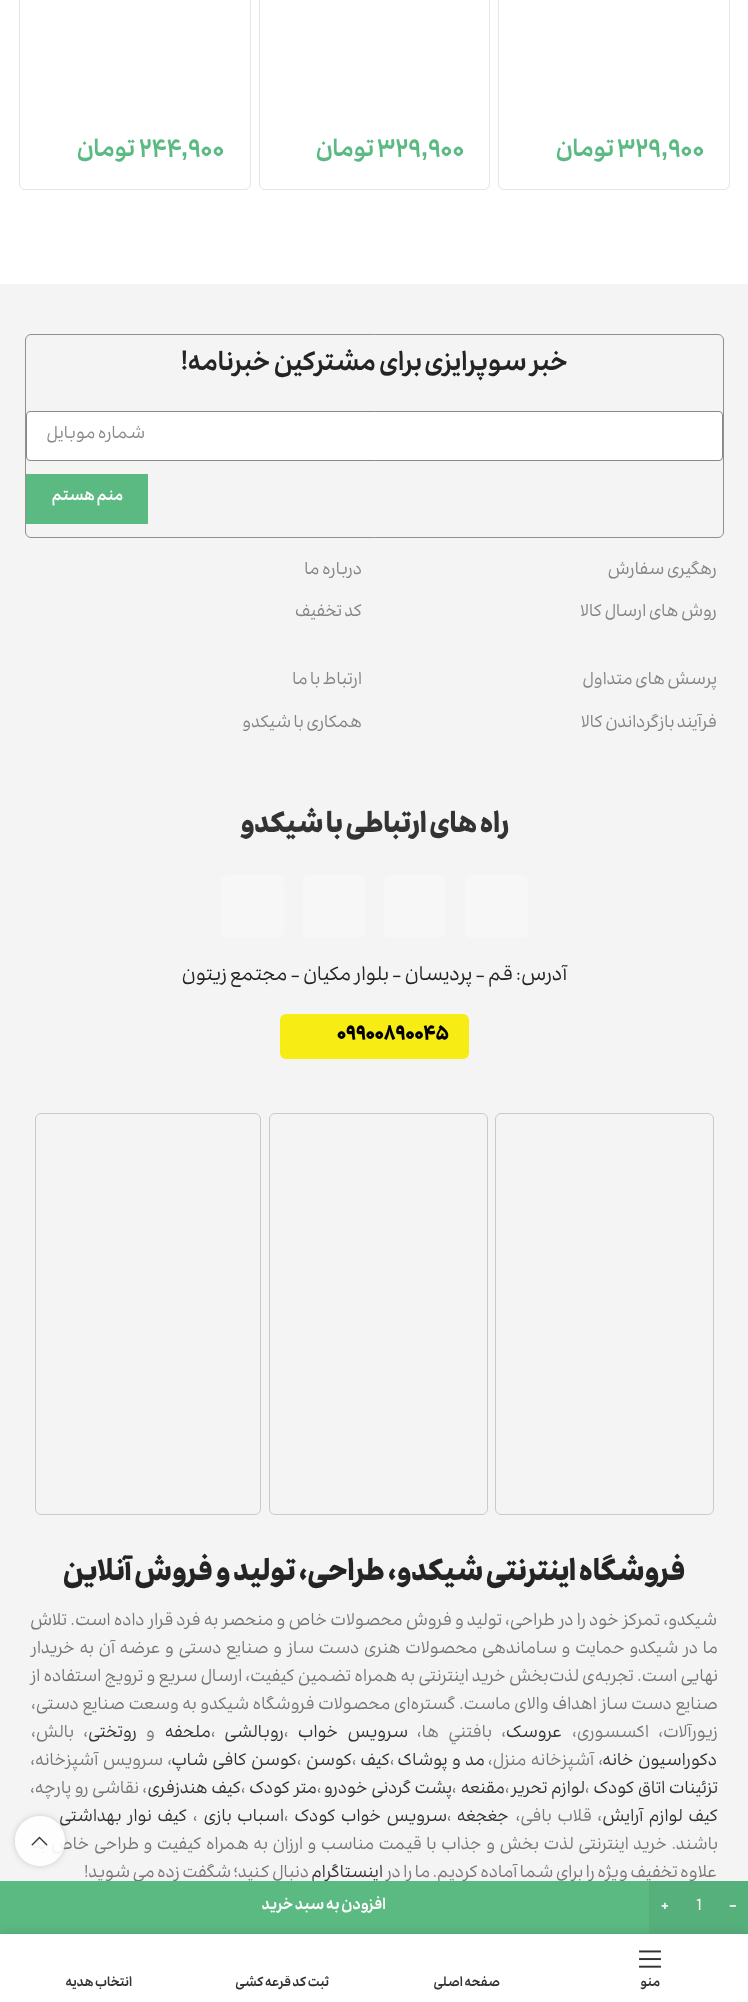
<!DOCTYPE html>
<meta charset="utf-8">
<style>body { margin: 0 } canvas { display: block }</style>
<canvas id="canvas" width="748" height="2002"></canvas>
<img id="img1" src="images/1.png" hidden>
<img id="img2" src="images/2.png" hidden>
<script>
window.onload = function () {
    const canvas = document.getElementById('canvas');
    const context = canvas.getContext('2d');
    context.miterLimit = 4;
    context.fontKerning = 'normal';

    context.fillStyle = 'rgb(255, 255, 255)';
    context.fillRect(0, 0, 748, 2002);
    context.beginPath();
    context.roundRect(498.5, -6.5, 231, 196, 5.5);
    context.strokeStyle = 'rgb(228, 228, 228)';
    context.stroke();
    context.beginPath();
    context.roundRect(259.5, -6.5, 230, 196, 5.5);
    context.stroke();
    context.beginPath();
    context.roundRect(19.5, -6.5, 231, 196, 5.5);
    context.stroke();
    context.fillStyle = 'rgb(244, 244, 244)';
    context.fillRect(0, 284, 748, 1597);
    context.beginPath();
    context.roundRect(25.5, 334.5, 698, 203, 5.5);
    context.strokeStyle = 'rgb(144, 144, 144)';
    context.stroke();
    context.fillStyle = 'rgb(255, 255, 255)';
    context.beginPath();
    context.roundRect(26.5, 411.5, 696, 49, 3.5);
    context.fill();
    context.strokeStyle = 'rgb(129, 138, 145)';
    context.stroke();
    context.fillStyle = 'rgb(91, 185, 130)';
    context.fillRect(26, 474, 122, 50);
    context.fillStyle = 'rgb(247, 247, 247)';
    context.beginPath();
    context.roundRect(465, 875, 63, 63, 6);
    context.fill();
    context.beginPath();
    context.roundRect(384, 875, 62, 63, 6);
    context.fill();
    context.beginPath();
    context.roundRect(303, 875, 62, 63, 6);
    context.fill();
    context.beginPath();
    context.roundRect(221, 875, 63, 63, 6);
    context.fill();
    context.fillStyle = 'rgb(247, 236, 20)';
    context.beginPath();
    context.roundRect(280, 1014, 189, 45, 6);
    context.fill();
    context.beginPath();
    context.roundRect(495.5, 1113.5, 218, 401, 5.5);
    context.strokeStyle = 'rgb(205, 201, 201)';
    context.stroke();
    context.beginPath();
    context.roundRect(269.5, 1113.5, 218, 401, 5.5);
    context.stroke();
    context.beginPath();
    context.roundRect(35.5, 1113.5, 225, 401, 5.5);
    context.stroke();
    context.save();
    context.beginPath();
    context.moveTo(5, 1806);
    context.lineTo(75, 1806);
    context.lineTo(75, 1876);
    context.lineTo(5, 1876);
    context.closePath();
    context.moveTo(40, 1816);
    context.bezierCurveTo(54, 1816, 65, 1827, 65, 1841);
    context.bezierCurveTo(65, 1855, 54, 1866, 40, 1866);
    context.bezierCurveTo(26, 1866, 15, 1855, 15, 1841);
    context.bezierCurveTo(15, 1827, 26, 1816, 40, 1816);
    context.closePath();
    context.clip('evenodd');
    context.fillStyle = 'rgba(0, 0, 0, 0.17)';
    context.filter = 'blur(3px)';
    context.beginPath();
    context.roundRect(15, 1816, 50, 50, 25);
    context.fill();
    context.filter = 'none';
    context.restore();
    context.font = 'bold 25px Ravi';
    context.fillStyle = 'rgb(91, 185, 130)';
    context.fillText('۹۰۰', 668, 156);
    context.font = 'bold 25px Liberation Sans';
    context.fillText(',', 661, 156);
    context.font = 'bold 25px Ravi';
    context.fillText('۳۲۹', 617, 156);
    context.direction = 'rtl';
    context.fillText('تومان', 614, 156);
    context.direction = 'ltr';
    context.fillText('۹۰۰', 428, 156);
    context.font = 'bold 25px Liberation Sans';
    context.fillText(',', 421, 156);
    context.font = 'bold 25px Ravi';
    context.fillText('۳۲۹', 377, 156);
    context.direction = 'rtl';
    context.fillText('تومان', 374, 156);
    context.direction = 'ltr';
    context.fillText('۹۰۰', 188, 156);
    context.font = 'bold 25px Liberation Sans';
    context.fillText(',', 181, 156);
    context.font = 'bold 25px Ravi';
    context.fillText('۲۴۴', 139, 156);
    context.direction = 'rtl';
    context.fillText('تومان', 135, 156);
    context.font = 'bold 27.5px Ravi';
    context.fillStyle = 'rgb(36, 36, 36)';
    context.fillText('خبر سوپرایزی', 568, 370);
    context.fillText('برای مشترکین خبرنامه!', 422, 370);
    context.font = '17.5px Ravi';
    context.fillStyle = 'rgb(135, 137, 138)';
    context.fillText('شماره موبایل', 145, 438);
    context.font = 'bold 16.25px Ravi';
    context.fillStyle = 'rgb(255, 255, 255)';
    context.fillText('منم هستم', 123, 500);
    context.font = '17.5px Ravi';
    context.fillStyle = 'rgb(132, 132, 132)';
    context.fillText('رهگیری سفارش', 717, 574);
    context.fillText('روش های ارسال کالا', 717, 616);
    context.fillText('پرسش های متداول', 717, 684);
    context.fillText('فرآیند بازگرداندن کالا', 717, 727);
    context.fillText('درباره ما', 362, 574);
    context.fillText('کد تخفیف', 362, 616);
    context.fillText('ارتباط با ما', 362, 684);
    context.fillText('همکاری با شیکدو', 362, 727);
    context.font = '900 30px Ravi';
    context.fillStyle = 'rgb(51, 51, 51)';
    context.fillText('راه های ارتباطی با شیکدو', 509, 832);
    context.font = '20px Ravi';
    context.fillStyle = 'rgb(36, 36, 36)';
    context.fillText('آدرس: قم - پردیسان - بلوار مکیان - مجتمع زیتون', 567, 980);
    context.direction = 'ltr';
    context.font = '900 20px Ravi';
    context.fillStyle = 'rgb(0, 0, 0)';
    context.fillText('۰۹۹۰۰۸۹۰۰۴۵', 337, 1039);
    context.direction = 'rtl';
    context.font = '900 31.25px Ravi';
    context.fillStyle = 'rgb(36, 36, 36)';
    context.fillText('فروشگاه اینترنتی شیکدو، طراحی، تولید و فروش آنلاین', 685, 1580);
    context.wordSpacing = '0.75px';
    context.font = '17.5px Ravi';
    context.fillStyle = 'rgb(119, 119, 119)';
    context.fillText('شیکدو، تمرکز خود را در طراحی، تولید و فروش محصولات خاص و منحصر به فرد قرار داده است. تلاش', 717, 1625);
    context.wordSpacing = '2.1px';
    context.fillText('ما در شیکدو حمایت و ساماندهی محصولات هنری دست ساز و صنایع دستی و عرضه آن به خریدار', 718, 1653);
    context.wordSpacing = '0.75px';
    context.fillText('نهایی است. تجربه‌ی لذت‌بخش خرید اینترنتی به همراه تضمین کیفیت، ارسال سریع و ترویج استفاده از', 718, 1681);
    context.wordSpacing = '1px';
    context.fillText('صنایع دست ساز اهداف والای ماست. گستره‌ای محصولات فروشگاه شیکدو به وسعت صنایع دستی،', 718, 1709);
    context.wordSpacing = '7px';
    context.fillText('زیورآلات، اکسسوری،', 718, 1737);
    context.wordSpacing = '0px';
    context.fillStyle = 'rgb(51, 51, 51)';
    context.fillText('عروسک', 562, 1737);
    context.wordSpacing = '7px';
    context.fillStyle = 'rgb(119, 119, 119)';
    context.fillText('، بافتني ها،', 506, 1737);
    context.fillStyle = 'rgb(51, 51, 51)';
    context.fillText('سرویس خواب', 408, 1737);
    context.wordSpacing = '0px';
    context.direction = 'ltr';
    context.fillStyle = 'rgb(119, 119, 119)';
    context.fillText('،', 284, 1737);
    context.direction = 'rtl';
    context.fillStyle = 'rgb(51, 51, 51)';
    context.fillText('روبالشی', 284, 1737);
    context.direction = 'ltr';
    context.fillStyle = 'rgb(119, 119, 119)';
    context.fillText('،', 211, 1737);
    context.direction = 'rtl';
    context.fillStyle = 'rgb(51, 51, 51)';
    context.fillText('ملحفه', 211, 1737);
    context.fillStyle = 'rgb(119, 119, 119)';
    context.fillText('و', 155, 1737);
    context.fillStyle = 'rgb(51, 51, 51)';
    context.fillText('روتختی', 137, 1737);
    context.wordSpacing = '7px';
    context.fillStyle = 'rgb(119, 119, 119)';
    context.fillText('، بالش،', 88, 1737);
    context.wordSpacing = '2px';
    context.fillStyle = 'rgb(51, 51, 51)';
    context.fillText('دکوراسیون خانه', 717, 1765);
    context.fillStyle = 'rgb(119, 119, 119)';
    context.fillText('، آشپزخانه منزل،', 603, 1765);
    context.fillStyle = 'rgb(51, 51, 51)';
    context.fillText('مد و پوشاک', 485, 1765);
    context.wordSpacing = '0px';
    context.direction = 'ltr';
    context.fillStyle = 'rgb(119, 119, 119)';
    context.fillText('،', 390, 1765);
    context.direction = 'rtl';
    context.fillStyle = 'rgb(51, 51, 51)';
    context.fillText('کیف', 390, 1765);
    context.direction = 'ltr';
    context.fillStyle = 'rgb(119, 119, 119)';
    context.fillText('،', 352, 1765);
    context.direction = 'rtl';
    context.fillStyle = 'rgb(51, 51, 51)';
    context.fillText('کوسن', 352, 1765);
    context.direction = 'ltr';
    context.fillStyle = 'rgb(119, 119, 119)';
    context.fillText('،', 297, 1765);
    context.wordSpacing = '2px';
    context.direction = 'rtl';
    context.fillStyle = 'rgb(51, 51, 51)';
    context.fillText('کوسن کافی شاپ', 297, 1765);
    context.fillStyle = 'rgb(119, 119, 119)';
    context.fillText('، سرویس آشپزخانه،', 172, 1765);
    context.wordSpacing = '1px';
    context.fillStyle = 'rgb(51, 51, 51)';
    context.fillText('تزئینات اتاق کودک', 718, 1793);
    context.wordSpacing = '0px';
    context.direction = 'ltr';
    context.fillStyle = 'rgb(119, 119, 119)';
    context.fillText('،', 585, 1793);
    context.wordSpacing = '1px';
    context.direction = 'rtl';
    context.fillStyle = 'rgb(51, 51, 51)';
    context.fillText('لوازم تحریر', 585, 1793);
    context.wordSpacing = '0px';
    context.direction = 'ltr';
    context.fillStyle = 'rgb(119, 119, 119)';
    context.fillText('،', 505, 1793);
    context.direction = 'rtl';
    context.fillStyle = 'rgb(51, 51, 51)';
    context.fillText('مقنعه', 505, 1793);
    context.direction = 'ltr';
    context.fillStyle = 'rgb(119, 119, 119)';
    context.fillText('،', 452, 1793);
    context.wordSpacing = '1px';
    context.direction = 'rtl';
    context.fillStyle = 'rgb(51, 51, 51)';
    context.fillText('پشت گردنی خودرو', 452, 1793);
    context.wordSpacing = '0px';
    context.direction = 'ltr';
    context.fillStyle = 'rgb(119, 119, 119)';
    context.fillText('،', 317, 1793);
    context.wordSpacing = '1px';
    context.direction = 'rtl';
    context.fillStyle = 'rgb(51, 51, 51)';
    context.fillText('متر کودک', 317, 1793);
    context.wordSpacing = '0px';
    context.direction = 'ltr';
    context.fillStyle = 'rgb(119, 119, 119)';
    context.fillText('،', 241, 1793);
    context.wordSpacing = '1px';
    context.direction = 'rtl';
    context.fillStyle = 'rgb(51, 51, 51)';
    context.fillText('کیف هندزفری', 241, 1793);
    context.fillStyle = 'rgb(119, 119, 119)';
    context.fillText('، نقاشی رو پارچه،', 147, 1793);
    context.wordSpacing = '3px';
    context.fillStyle = 'rgb(51, 51, 51)';
    context.fillText('کیف لوازم آرایش', 718, 1821);
    context.fillStyle = 'rgb(119, 119, 119)';
    context.fillText('، قلاب بافی،', 602, 1821);
    context.wordSpacing = '0px';
    context.fillStyle = 'rgb(51, 51, 51)';
    context.fillText('جغجغه', 509, 1821);
    context.direction = 'ltr';
    context.fillStyle = 'rgb(119, 119, 119)';
    context.fillText('،', 447, 1821);
    context.wordSpacing = '3px';
    context.direction = 'rtl';
    context.fillStyle = 'rgb(51, 51, 51)';
    context.fillText('سرویس خواب کودک', 447, 1821);
    context.wordSpacing = '0px';
    context.direction = 'ltr';
    context.fillStyle = 'rgb(119, 119, 119)';
    context.fillText('،', 284, 1821);
    context.wordSpacing = '3px';
    context.direction = 'rtl';
    context.fillStyle = 'rgb(51, 51, 51)';
    context.fillText('اسباب بازی', 284, 1821);
    context.wordSpacing = '0px';
    context.direction = 'ltr';
    context.fillStyle = 'rgb(119, 119, 119)';
    context.fillText('،', 193, 1821);
    context.wordSpacing = '3px';
    context.direction = 'rtl';
    context.fillStyle = 'rgb(51, 51, 51)';
    context.fillText('کیف نوار بهداشتی', 187, 1821);
    context.wordSpacing = '2px';
    context.fillStyle = 'rgb(119, 119, 119)';
    context.fillText('باشند. خرید اینترنتی لذت بخش و جذاب با قیمت مناسب و ارزان به همراه کیفیت و طراحی خاص به', 718, 1849);
    context.wordSpacing = '0px';
    context.fillText('علاوه تخفیف ویژه را برای شما آماده کردیم. ما را در', 717, 1877);
    context.fillStyle = 'rgb(51, 51, 51)';
    context.fillText('اینستاگرام', 383, 1877);
    context.fillStyle = 'rgb(119, 119, 119)';
    context.fillText('دنبال کنید؛ شگفت زده می شوید!', 309, 1877);
    context.fillStyle = 'rgba(255, 255, 255, 0.9)';
    context.beginPath();
    context.arc(40, 1841, 25, 0, 2 * Math.PI);
    context.fill();
    context.drawImage(document.getElementById('img1'), 31, 1836, 17, 10);
    context.fillStyle = 'rgb(86, 176, 124)';
    context.fillRect(649, 1881, 99, 53);
    context.direction = 'ltr';
    context.font = 'bold 16.25px Ravi';
    context.fillStyle = 'rgb(242, 242, 242)';
    context.fillText('-', 729, 1909);
    context.font = '17.5px Ravi';
    context.fillText('1', 696, 1910);
    context.font = 'bold 16.25px Ravi';
    context.fillText('+', 661, 1909);
    context.fillStyle = 'rgb(91, 185, 130)';
    context.fillRect(0, 1881, 649, 53);
    context.direction = 'rtl';
    context.fillStyle = 'rgb(255, 255, 255)';
    context.fillText('افزودن به سبد خرید', 386, 1909);
    context.fillStyle = 'rgba(0, 0, 0, 0.12)';
    context.filter = 'blur(5.5px)';
    context.beginPath();
    context.rect(0, 1934, 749, 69);
    context.fill();
    context.filter = 'none';
    context.fillStyle = 'rgb(255, 255, 255)';
    context.fillRect(0, 1934, 748, 68);
    context.drawImage(document.getElementById('img2'), 639, 1950, 22, 18);
    context.font = 'bold 13.75px Ravi';
    context.fillStyle = 'rgb(51, 51, 51)';
    context.fillText('منو', 660, 1986);
    context.fillText('صفحه اصلی', 500, 1986);
    context.save();
    context.beginPath();
    context.rect(203, 1976, 160, 17);
    context.clip();
    context.fillText('ثبت کد قرعه کشی', 329, 1986);
    context.restore();
    context.fillText('انتخاب هدیه', 132, 1986);
};
</script>
